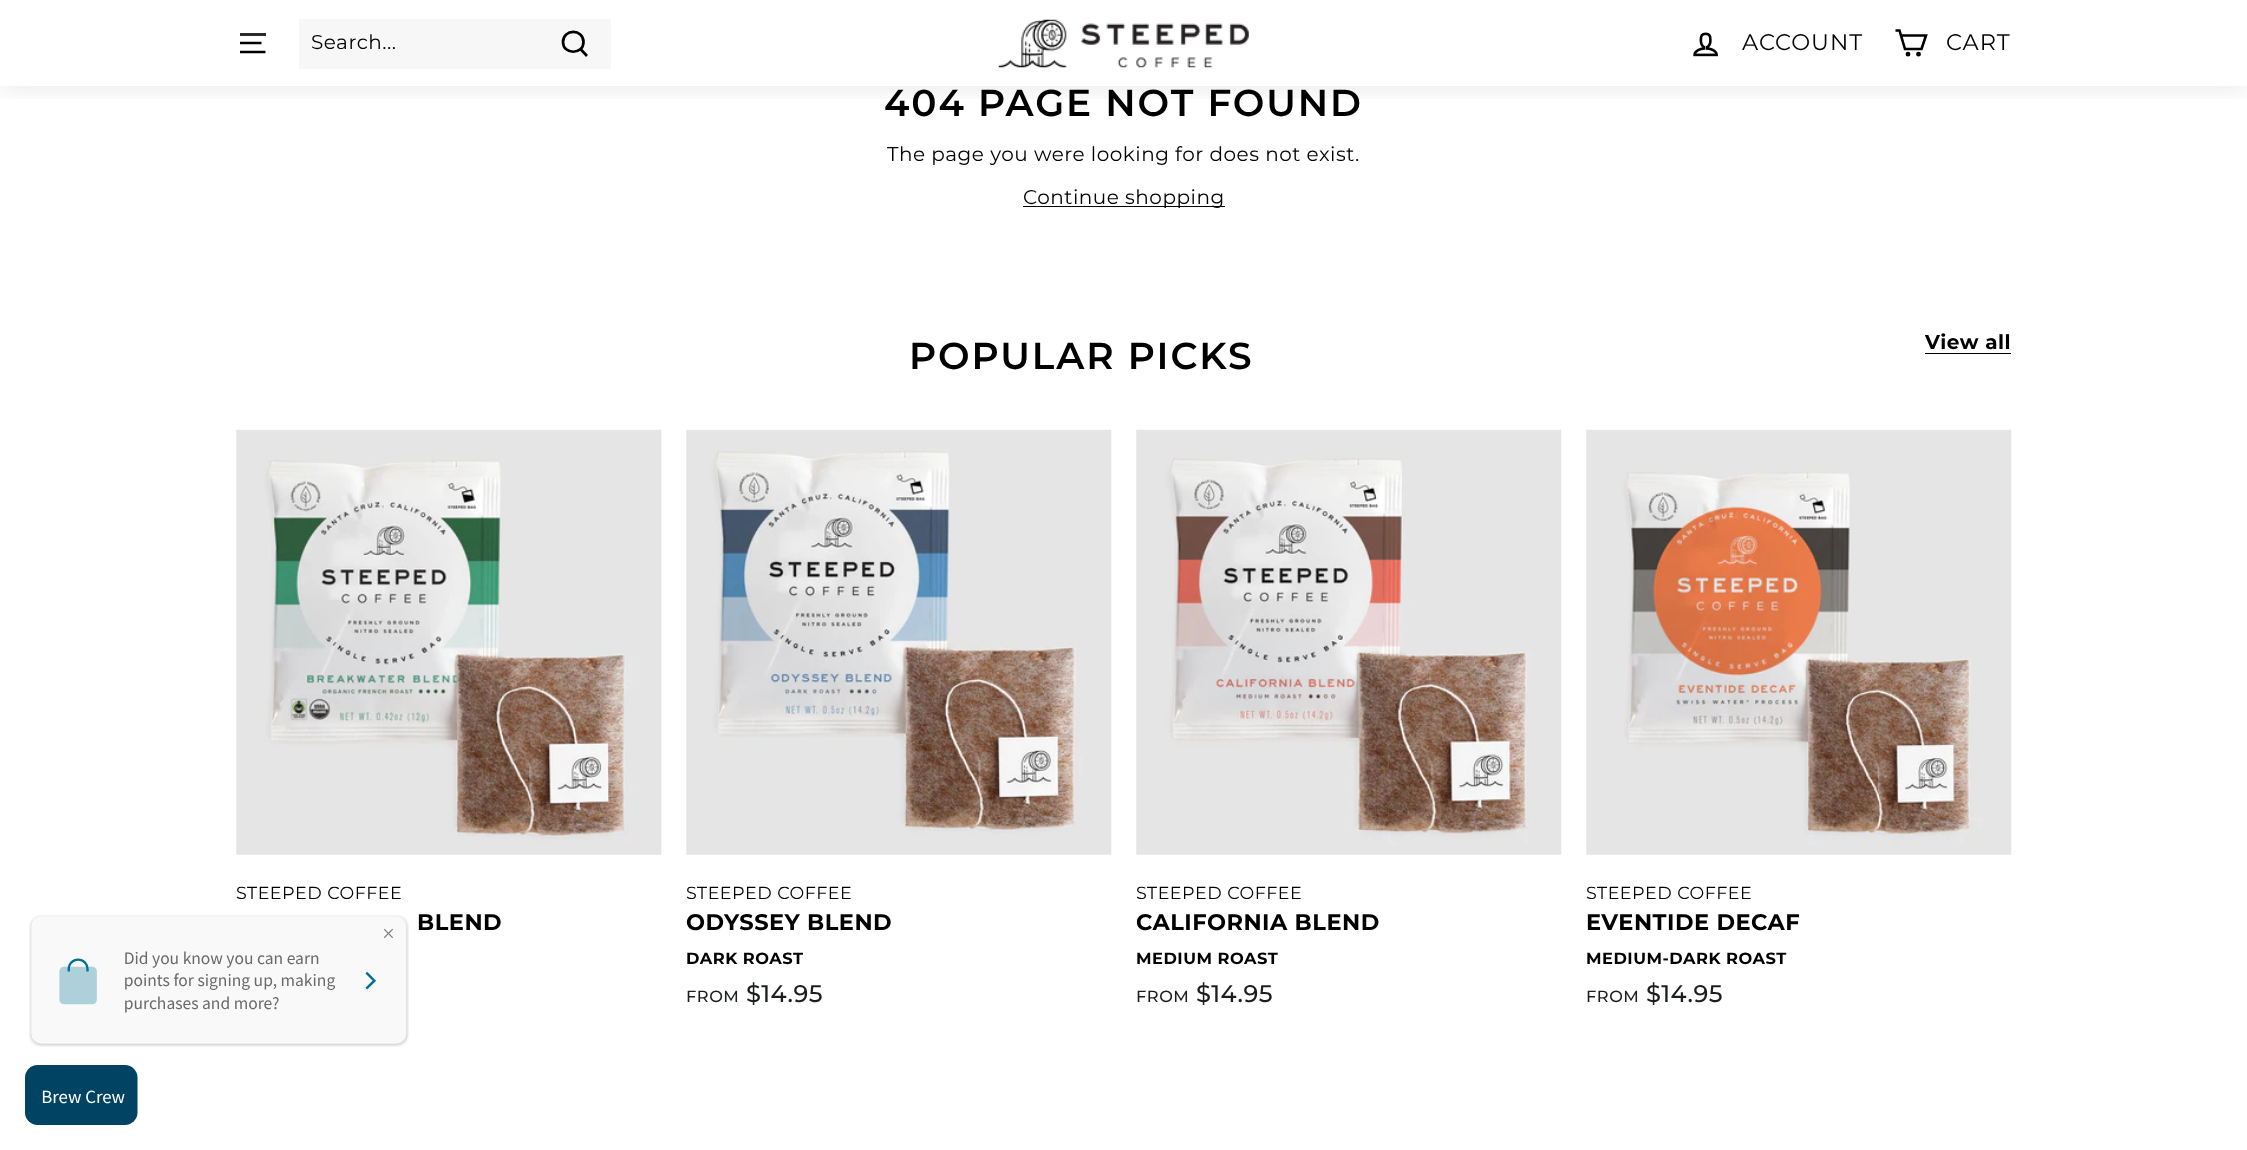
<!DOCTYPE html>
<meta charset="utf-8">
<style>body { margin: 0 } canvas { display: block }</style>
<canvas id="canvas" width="2247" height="1150"></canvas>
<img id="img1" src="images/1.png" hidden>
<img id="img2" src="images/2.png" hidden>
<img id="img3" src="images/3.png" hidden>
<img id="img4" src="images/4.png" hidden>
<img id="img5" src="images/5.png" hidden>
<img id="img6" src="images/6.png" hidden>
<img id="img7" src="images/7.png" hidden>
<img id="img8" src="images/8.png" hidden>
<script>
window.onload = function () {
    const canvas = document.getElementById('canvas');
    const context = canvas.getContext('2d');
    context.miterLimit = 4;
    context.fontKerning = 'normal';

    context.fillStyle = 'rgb(255, 255, 255)';
    context.fillRect(0, 0, 2247, 1150);
    context.drawImage(document.getElementById('img1'), 29, 915, 380, 132);
    context.save();
    context.beginPath();
    context.rect(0, 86, 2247, 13);
    context.clip();
    context.fillStyle = 'rgba(0, 0, 0, 0.1)';
    context.filter = 'blur(15.5px)';
    context.beginPath();
    context.rect(0, 0, 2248, 86);
    context.fill();
    context.filter = 'none';
    context.restore();
    context.fillStyle = 'rgb(43, 43, 43)';
    context.fillRect(240, 33, 26, 3);
    context.beginPath();
    context.moveTo(240, 43);
    context.lineTo(261.5, 43);
    context.moveTo(240, 52);
    context.lineTo(265.5, 52);
    context.strokeStyle = 'rgb(0, 0, 0)';
    context.lineWidth = 2.5;
    context.stroke();
    context.fillStyle = 'rgb(247, 247, 247)';
    context.fillRect(299, 19, 312, 50);
    context.beginPath();
    context.moveTo(583.5, 42);
    context.bezierCurveTo(583.5, 55, 563, 55, 563, 42);
    context.bezierCurveTo(563, 28.5, 583.5, 28.5, 583.5, 42);
    context.closePath();
    context.moveTo(587, 56);
    context.lineTo(580.5, 49);
    context.lineWidth = 2.7;
    context.stroke();
    context.drawImage(document.getElementById('img2'), 998, 19, 251, 49);
    context.drawImage(document.getElementById('img3'), 1693, 32, 25, 25);
    context.beginPath();
    context.moveTo(1901, 35.5);
    context.lineTo(1926, 35.5);
    context.lineTo(1921.5, 49);
    context.lineTo(1905, 49);
    context.lineTo(1899.5, 30.5);
    context.lineTo(1895.5, 30.5);
    context.lineWidth = 2.6;
    context.stroke();
    context.beginPath();
    context.arc(1908, 54.2, 1.1, 0, 2 * Math.PI);
    context.stroke();
    context.beginPath();
    context.arc(1918.5, 54.2, 1.1, 0, 2 * Math.PI);
    context.stroke();
    context.fillStyle = 'rgb(0, 0, 0)';
    context.fillRect(1023, 206, 202, 1);
    context.fillRect(1925, 353, 86, 1);
    context.drawImage(document.getElementById('img4'), 236, 429, 426, 426);
    context.drawImage(document.getElementById('img5'), 686, 429, 426, 426);
    context.drawImage(document.getElementById('img6'), 1136, 429, 426, 426);
    context.drawImage(document.getElementById('img7'), 1586, 429, 426, 426);
    context.drawImage(document.getElementById('img8'), 25, 1065, 113, 60);
    context.letterSpacing = '0.5px';
    context.font = '20px Montserrat';
    context.fillText('Search...', 311, 49);
    context.letterSpacing = '1px';
    context.font = '22.5px Montserrat';
    context.fillText('ACCOUNT', 1742, 50);
    context.fillText('CART', 1946, 50);
    context.letterSpacing = '1.9px';
    context.font = '600 37.5px Montserrat';
    context.fillText('404 PAGE NOT FOUND', 884, 116);
    context.letterSpacing = '0.5px';
    context.font = '20px Montserrat';
    context.fillText('The page you were looking for does not exist.', 887, 161);
    context.fillText('Continue shopping', 1023, 204);
    context.letterSpacing = '1.9px';
    context.font = '600 37.5px Montserrat';
    context.fillText('POPULAR PICKS', 909, 369);
    context.letterSpacing = '0.5px';
    context.font = 'bold 20px Montserrat';
    context.fillText('View all', 1925, 349);
    context.font = '17.5px Montserrat';
    context.fillText('STEEPED COFFEE', 236, 899);
    context.font = 'bold 22.5px Montserrat';
    context.fillText('BLEND', 417, 930);
    context.font = '17.5px Montserrat';
    context.fillText('STEEPED COFFEE', 686, 899);
    context.font = 'bold 22.5px Montserrat';
    context.fillText('ODYSSEY BLEND', 686, 930);
    context.font = 'bold 16.25px Montserrat';
    context.fillText('DARK ROAST', 686, 964);
    context.font = '500 16.25px Montserrat';
    context.fillStyle = 'rgb(28, 29, 29)';
    context.fillText('FROM', 686, 1002);
    context.font = '500 24px Montserrat';
    context.fillText('$14.95', 746, 1002);
    context.font = '17.5px Montserrat';
    context.fillStyle = 'rgb(0, 0, 0)';
    context.fillText('STEEPED COFFEE', 1136, 899);
    context.font = 'bold 22.5px Montserrat';
    context.fillText('CALIFORNIA BLEND', 1136, 930);
    context.font = 'bold 16.25px Montserrat';
    context.fillText('MEDIUM ROAST', 1136, 964);
    context.font = '500 16.25px Montserrat';
    context.fillStyle = 'rgb(28, 29, 29)';
    context.fillText('FROM', 1136, 1002);
    context.font = '500 24px Montserrat';
    context.fillText('$14.95', 1196, 1002);
    context.font = '17.5px Montserrat';
    context.fillStyle = 'rgb(0, 0, 0)';
    context.fillText('STEEPED COFFEE', 1586, 899);
    context.font = 'bold 22.5px Montserrat';
    context.fillText('EVENTIDE DECAF', 1586, 930);
    context.font = 'bold 16.25px Montserrat';
    context.fillText('MEDIUM-DARK ROAST', 1586, 964);
    context.font = '500 16.25px Montserrat';
    context.fillStyle = 'rgb(28, 29, 29)';
    context.fillText('FROM', 1586, 1002);
    context.font = '500 24px Montserrat';
    context.fillText('$14.95', 1646, 1002);
};
</script>
